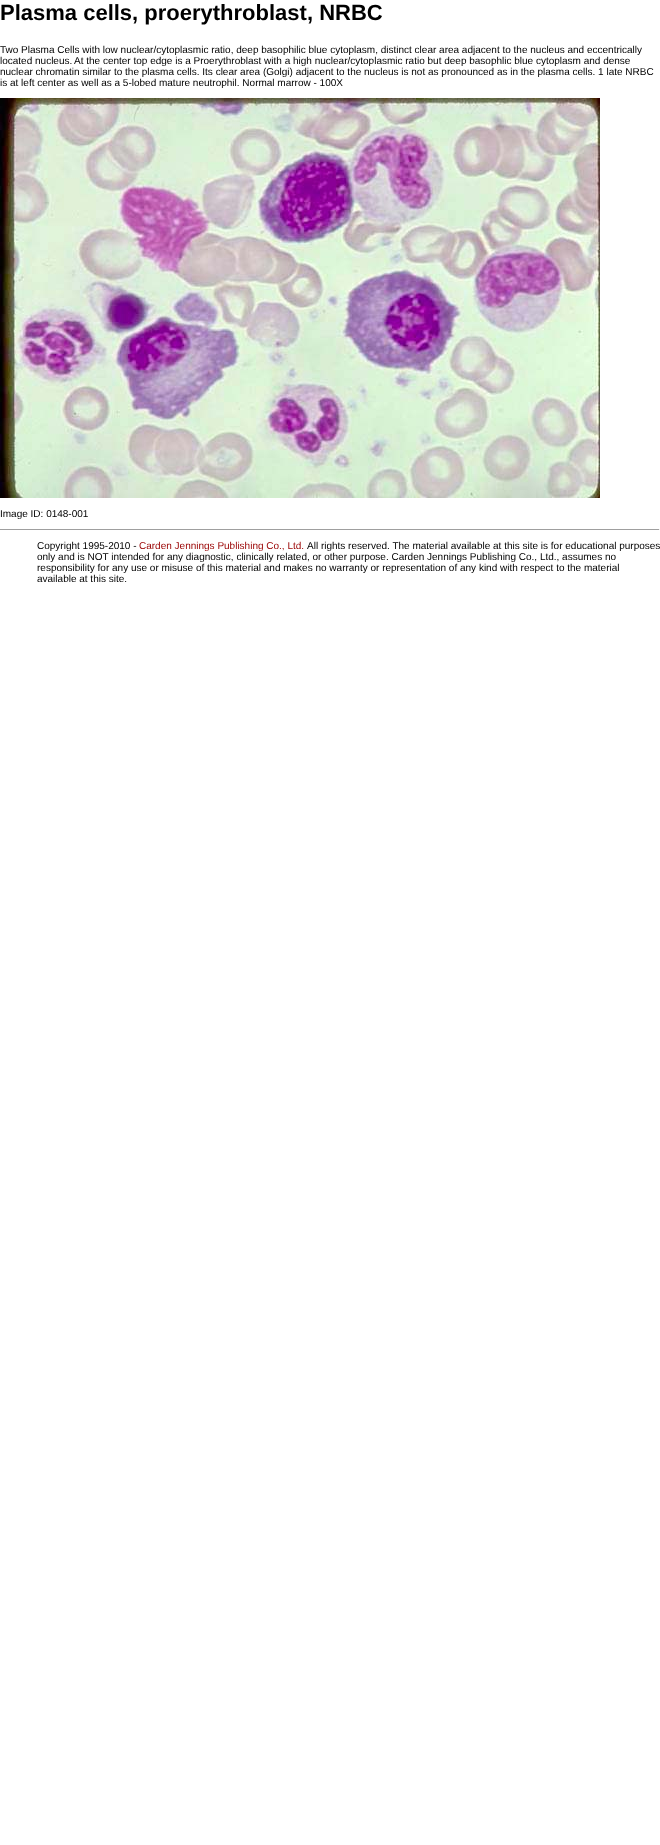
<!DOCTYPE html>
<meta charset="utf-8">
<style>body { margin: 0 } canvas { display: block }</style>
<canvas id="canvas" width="660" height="1845"></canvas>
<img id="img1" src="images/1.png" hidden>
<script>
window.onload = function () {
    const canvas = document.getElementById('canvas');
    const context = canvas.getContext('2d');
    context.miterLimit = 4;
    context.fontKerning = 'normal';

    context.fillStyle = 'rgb(255, 255, 255)';
    context.fillRect(0, 0, 660, 1845);
    context.drawImage(document.getElementById('img1'), 0, 98, 600, 400);
    context.fillStyle = 'rgb(159, 159, 159)';
    context.fillRect(0, 529, 660, 1);
    context.fillStyle = 'rgb(238, 238, 238)';
    context.fillRect(659, 529, 1, 1);
    context.font = 'bold 22px Liberation Sans';
    context.fillStyle = 'rgb(0, 0, 0)';
    context.fillText('Plasma cells, proerythroblast, NRBC', 0, 20);
    context.font = '10px Liberation Sans';
    context.fillText('Two Plasma Cells with low nuclear/cytoplasmic ratio, deep basophilic blue cytoplasm, distinct clear area adjacent to the nucleus and eccentrically', 0, 53);
    context.fillText('located nucleus.', 0, 64);
    context.fillText('At the center top edge is a Proerythroblast with a high nuclear/cytoplasmic ratio but deep basophlic blue cytoplasm and dense', 74, 64);
    context.fillText('nuclear chromatin similar to the plasma cells. Its clear area (Golgi) adjacent to the nucleus is not as pronounced as in the plasma cells. 1 late NRBC', 0, 75);
    context.fillText('is at left center as well as a 5-lobed mature neutrophil. Normal marrow - 100X', 0, 86);
    context.fillText('Image ID: 0148-001', 0, 517);
    context.fillText('Copyright 1995-2010 -', 37, 549);
    context.fillStyle = 'rgb(153, 0, 0)';
    context.fillText('Carden Jennings Publishing Co., Ltd.', 139, 549);
    context.fillStyle = 'rgb(0, 0, 0)';
    context.fillText('All rights reserved. The material available at this site is for educational purposes', 307, 549);
    context.fillText('only and is NOT intended for any diagnostic, clinically related, or other purpose. Carden Jennings Publishing Co., Ltd., assumes no', 37, 560);
    context.fillText('responsibility for any use or misuse of this material and makes no warranty or representation of any kind with respect to the material', 37, 571);
    context.fillText('available at this site.', 37, 582);
};
</script>
